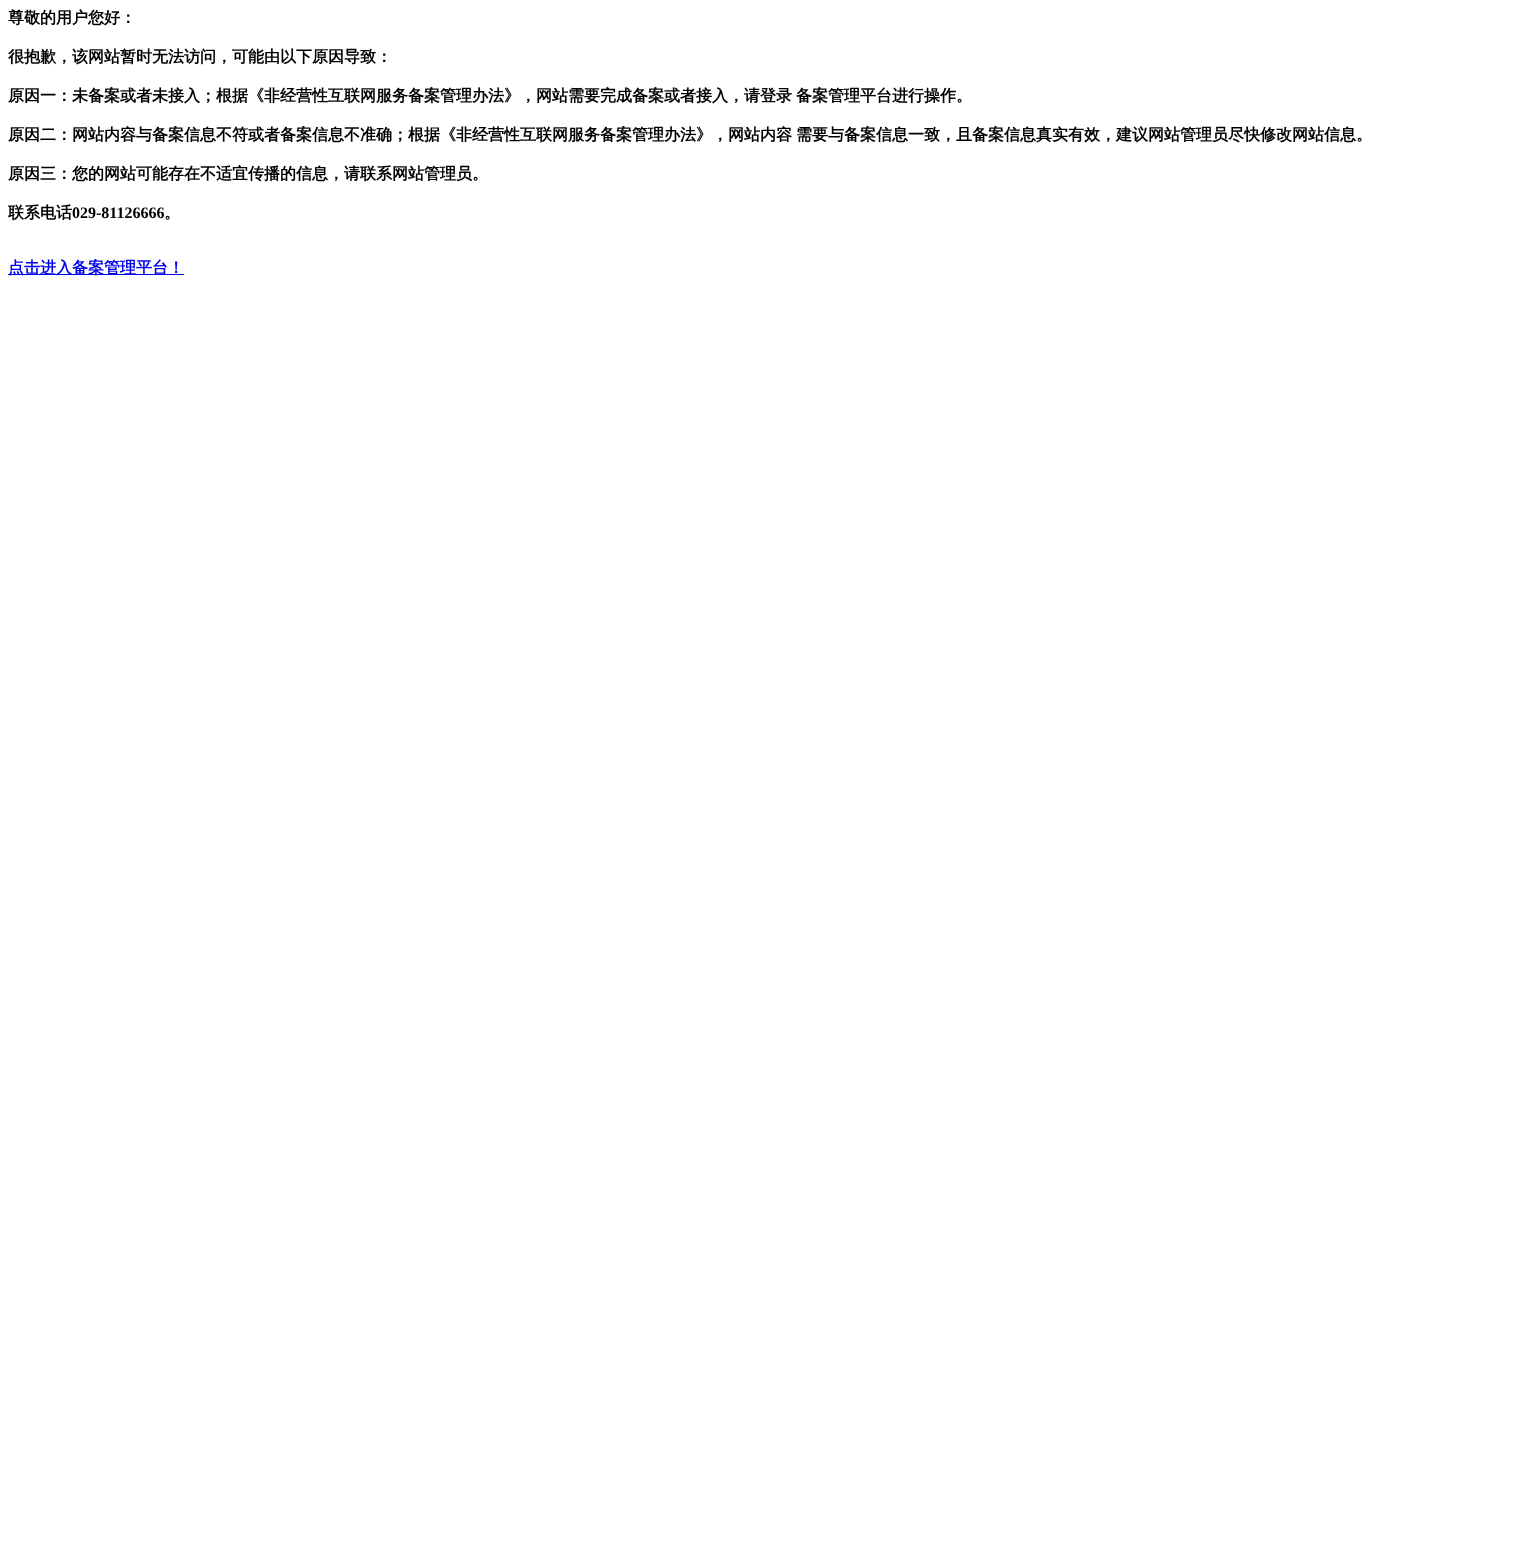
<!DOCTYPE html>
<meta charset="utf-8">
<style>body { margin: 0 } canvas { display: block }</style>
<canvas id="canvas" width="1537" height="1548"></canvas>
<script>
window.onload = function () {
    const canvas = document.getElementById('canvas');
    const context = canvas.getContext('2d');
    context.miterLimit = 4;
    context.fontKerning = 'normal';

    context.fillStyle = 'rgb(255, 255, 255)';
    context.fillRect(0, 0, 1537, 1548);
    context.fillStyle = 'rgb(0, 0, 238)';
    context.fillRect(8, 274, 176, 1);
    context.font = 'bold 16px WenQuanYi Zen Hei';
    context.fillStyle = 'rgb(0, 0, 0)';
    context.fillText('尊敬的用户您好：', 8, 23);
    context.fillText('很抱歉，该网站暂时无法访问，可能由以下原因导致：', 8, 62);
    context.fillText('原因一：未备案或者未接入；根据《非经营性互联网服务备案管理办法》，网站需要完成备案或者接入，请登录', 8, 101);
    context.fillText('备案管理平台进行操作。', 796, 101);
    context.fillText('原因二：网站内容与备案信息不符或者备案信息不准确；根据《非经营性互联网服务备案管理办法》，网站内容', 8, 140);
    context.fillText('需要与备案信息一致，且备案信息真实有效，建议网站管理员尽快修改网站信息。', 796, 140);
    context.fillText('原因三：您的网站可能存在不适宜传播的信息，请联系网站管理员。', 8, 179);
    context.fillText('联系电话', 8, 218);
    context.font = 'bold 16px Liberation Serif';
    context.fillText('029-81126666', 72, 218);
    context.font = 'bold 16px WenQuanYi Zen Hei';
    context.fillText('。', 164, 218);
    context.fillStyle = 'rgb(0, 0, 238)';
    context.fillText('点击进入备案管理平台！', 8, 273);
};
</script>
